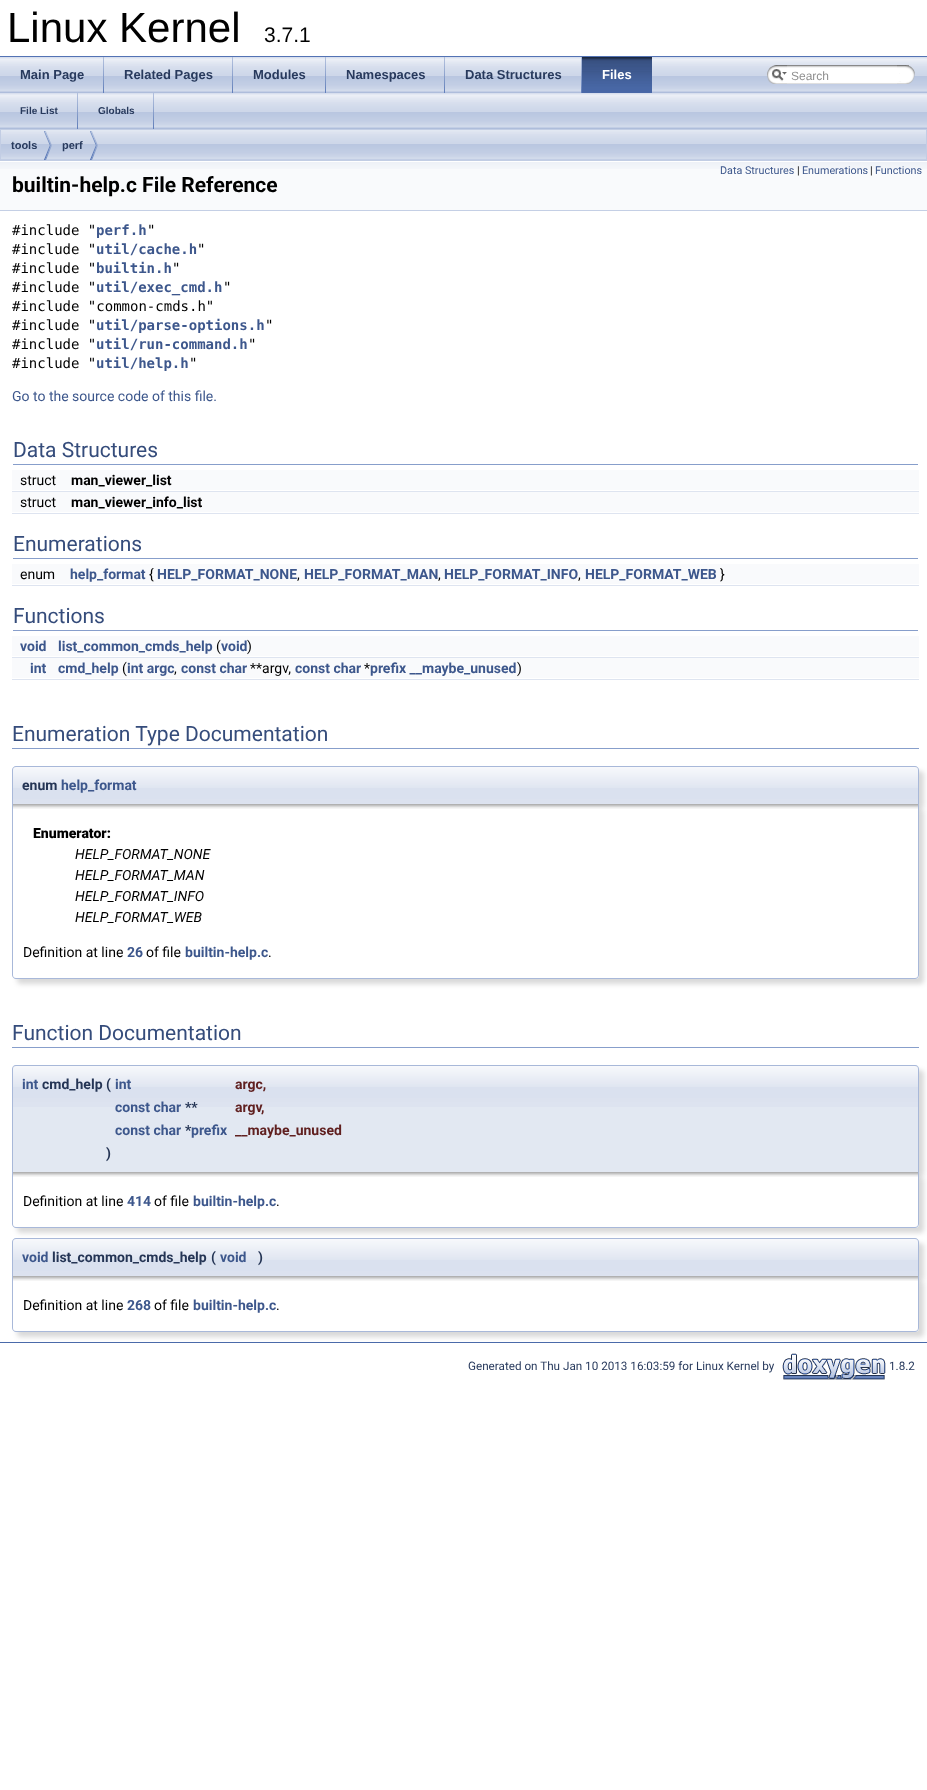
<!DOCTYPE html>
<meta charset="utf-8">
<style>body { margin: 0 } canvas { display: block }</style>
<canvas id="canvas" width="927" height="1790"></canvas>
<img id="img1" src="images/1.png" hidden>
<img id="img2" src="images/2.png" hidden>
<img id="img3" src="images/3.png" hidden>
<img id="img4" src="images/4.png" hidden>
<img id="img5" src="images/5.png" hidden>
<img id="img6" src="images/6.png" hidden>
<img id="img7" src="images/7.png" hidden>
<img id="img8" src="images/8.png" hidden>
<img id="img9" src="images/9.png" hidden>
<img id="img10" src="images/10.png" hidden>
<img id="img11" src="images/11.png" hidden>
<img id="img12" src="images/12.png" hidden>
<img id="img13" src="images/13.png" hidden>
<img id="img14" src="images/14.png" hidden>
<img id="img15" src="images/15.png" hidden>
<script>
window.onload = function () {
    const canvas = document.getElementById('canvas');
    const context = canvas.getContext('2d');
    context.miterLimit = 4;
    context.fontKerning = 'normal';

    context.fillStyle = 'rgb(255, 255, 255)';
    context.fillRect(0, 0, 927, 1790);
    context.fillStyle = 'rgb(83, 115, 180)';
    context.fillRect(0, 56, 927, 1);
    context.drawImage(document.getElementById('img1'), 0, 57, 927, 36);
    context.drawImage(document.getElementById('img2'), 103, 57, 1, 36);
    context.drawImage(document.getElementById('img2'), 232, 57, 1, 36);
    context.drawImage(document.getElementById('img2'), 325, 57, 1, 36);
    context.drawImage(document.getElementById('img2'), 444, 57, 1, 36);
    context.drawImage(document.getElementById('img2'), 581, 57, 1, 36);
    context.drawImage(document.getElementById('img3'), 582, 57, 70, 36);
    context.drawImage(document.getElementById('img4'), 767, 65, 20, 19);
    context.drawImage(document.getElementById('img5'), 772, 69, 15, 12);
    context.drawImage(document.getElementById('img6'), 787, 65, 122, 19);
    context.drawImage(document.getElementById('img7'), 897, 65, 18, 19);
    context.drawImage(document.getElementById('img1'), 0, 93, 927, 36);
    context.drawImage(document.getElementById('img2'), 77, 93, 1, 36);
    context.drawImage(document.getElementById('img2'), 153, 93, 1, 36);
    context.drawImage(document.getElementById('img8'), 1, 130, 925, 30);
    context.strokeStyle = 'rgb(194, 205, 228)';
    context.strokeRect(0.5, 129.5, 926, 31);
    context.drawImage(document.getElementById('img9'), 44, 131, 8, 29);
    context.drawImage(document.getElementById('img9'), 90, 131, 8, 29);
    context.fillStyle = 'rgb(249, 250, 252)';
    context.fillRect(0, 169, 927, 41);
    context.drawImage(document.getElementById('img10'), 0, 161, 927, 8);
    context.fillStyle = 'rgb(196, 207, 229)';
    context.fillRect(0, 210, 927, 1);
    context.fillStyle = 'rgb(135, 158, 203)';
    context.fillRect(13, 464, 905, 1);
    context.fillStyle = 'rgb(249, 250, 252)';
    context.fillRect(12, 470, 907, 20);
    context.fillStyle = 'rgb(222, 228, 240)';
    context.fillRect(12, 491, 907, 1);
    context.fillStyle = 'rgb(249, 250, 252)';
    context.fillRect(12, 492, 907, 20);
    context.fillStyle = 'rgb(222, 228, 240)';
    context.fillRect(12, 513, 907, 1);
    context.fillStyle = 'rgb(135, 158, 203)';
    context.fillRect(13, 558, 905, 1);
    context.fillStyle = 'rgb(249, 250, 252)';
    context.fillRect(12, 564, 907, 20);
    context.fillStyle = 'rgb(222, 228, 240)';
    context.fillRect(12, 585, 907, 1);
    context.fillStyle = 'rgb(135, 158, 203)';
    context.fillRect(13, 630, 905, 1);
    context.fillStyle = 'rgb(249, 250, 252)';
    context.fillRect(12, 636, 907, 20);
    context.fillStyle = 'rgb(222, 228, 240)';
    context.fillRect(12, 657, 907, 1);
    context.fillStyle = 'rgb(249, 250, 252)';
    context.fillRect(12, 658, 907, 20);
    context.fillStyle = 'rgb(222, 228, 240)';
    context.fillRect(12, 679, 907, 1);
    context.fillStyle = 'rgb(135, 158, 203)';
    context.fillRect(12, 748, 907, 1);
    context.fillStyle = 'rgba(0, 0, 0, 0.15)';
    context.filter = 'blur(2.5px)';
    context.beginPath();
    context.roundRect(17, 771, 907, 38, 4);
    context.fill();
    context.filter = 'none';
    context.drawImage(document.getElementById('img11'), 12, 767, 907, 37);
    context.fillStyle = 'rgb(168, 184, 217)';
    context.beginPath();
    context.moveTo(16, 766);
    context.lineTo(915, 766);
    context.bezierCurveTo(917, 766, 919, 768, 919, 770);
    context.lineTo(919, 804);
    context.lineTo(12, 804);
    context.lineTo(12, 770);
    context.bezierCurveTo(12, 768, 14, 766, 16, 766);
    context.closePath();
    context.moveTo(16, 767);
    context.lineTo(915, 767);
    context.bezierCurveTo(917, 767, 918, 768, 918, 770);
    context.lineTo(918, 804);
    context.lineTo(13, 804);
    context.lineTo(13, 770);
    context.bezierCurveTo(13, 768, 14, 767, 16, 767);
    context.closePath();
    context.fill('evenodd');
    context.fillStyle = 'rgba(0, 0, 0, 0.15)';
    context.filter = 'blur(2.5px)';
    context.beginPath();
    context.roundRect(17, 809, 907, 175, 4);
    context.fill();
    context.filter = 'none';
    context.fillStyle = 'rgb(255, 255, 255)';
    context.beginPath();
    context.roundRect(12, 804, 907, 175, [0, 0, 4, 4]);
    context.fill();
    context.drawImage(document.getElementById('img12'), 13, 804, 905, 5);
    context.fillStyle = 'rgb(168, 184, 217)';
    context.beginPath();
    context.moveTo(12, 804);
    context.lineTo(919, 804);
    context.lineTo(919, 975);
    context.bezierCurveTo(919, 977, 917, 979, 915, 979);
    context.lineTo(16, 979);
    context.bezierCurveTo(14, 979, 12, 977, 12, 975);
    context.closePath();
    context.moveTo(13, 804);
    context.lineTo(918, 804);
    context.lineTo(918, 975);
    context.bezierCurveTo(918, 977, 917, 978, 915, 978);
    context.lineTo(16, 978);
    context.bezierCurveTo(14, 978, 13, 977, 13, 975);
    context.closePath();
    context.fill('evenodd');
    context.fillStyle = 'rgb(135, 158, 203)';
    context.fillRect(12, 1047, 907, 1);
    context.fillStyle = 'rgba(0, 0, 0, 0.15)';
    context.filter = 'blur(2.5px)';
    context.beginPath();
    context.roundRect(17, 1070, 907, 107, 4);
    context.fill();
    context.filter = 'none';
    context.fillStyle = 'rgb(226, 232, 242)';
    context.beginPath();
    context.roundRect(12, 1065, 907, 107, [4, 4, 0, 0]);
    context.fill();
    context.drawImage(document.getElementById('img13'), 12, 1066, 907, 41);
    context.fillStyle = 'rgb(168, 184, 217)';
    context.beginPath();
    context.moveTo(16, 1065);
    context.lineTo(915, 1065);
    context.bezierCurveTo(917, 1065, 919, 1067, 919, 1069);
    context.lineTo(919, 1172);
    context.lineTo(12, 1172);
    context.lineTo(12, 1069);
    context.bezierCurveTo(12, 1067, 14, 1065, 16, 1065);
    context.closePath();
    context.moveTo(16, 1066);
    context.lineTo(915, 1066);
    context.bezierCurveTo(917, 1066, 918, 1067, 918, 1069);
    context.lineTo(918, 1172);
    context.lineTo(13, 1172);
    context.lineTo(13, 1069);
    context.bezierCurveTo(13, 1067, 14, 1066, 16, 1066);
    context.closePath();
    context.fill('evenodd');
    context.fillStyle = 'rgba(0, 0, 0, 0.15)';
    context.filter = 'blur(2.5px)';
    context.beginPath();
    context.roundRect(17, 1177, 907, 56, 4);
    context.fill();
    context.filter = 'none';
    context.fillStyle = 'rgb(255, 255, 255)';
    context.beginPath();
    context.roundRect(12, 1172, 907, 56, [0, 0, 4, 4]);
    context.fill();
    context.drawImage(document.getElementById('img12'), 13, 1172, 905, 5);
    context.fillStyle = 'rgb(168, 184, 217)';
    context.beginPath();
    context.moveTo(12, 1172);
    context.lineTo(919, 1172);
    context.lineTo(919, 1224);
    context.bezierCurveTo(919, 1226, 917, 1228, 915, 1228);
    context.lineTo(16, 1228);
    context.bezierCurveTo(14, 1228, 12, 1226, 12, 1224);
    context.closePath();
    context.moveTo(13, 1172);
    context.lineTo(918, 1172);
    context.lineTo(918, 1224);
    context.bezierCurveTo(918, 1226, 917, 1227, 915, 1227);
    context.lineTo(16, 1227);
    context.bezierCurveTo(14, 1227, 13, 1226, 13, 1224);
    context.closePath();
    context.fill('evenodd');
    context.fillStyle = 'rgba(0, 0, 0, 0.15)';
    context.filter = 'blur(2.5px)';
    context.beginPath();
    context.roundRect(17, 1243, 907, 38, 4);
    context.fill();
    context.filter = 'none';
    context.drawImage(document.getElementById('img14'), 12, 1239, 907, 37);
    context.fillStyle = 'rgb(168, 184, 217)';
    context.beginPath();
    context.moveTo(16, 1238);
    context.lineTo(915, 1238);
    context.bezierCurveTo(917, 1238, 919, 1240, 919, 1242);
    context.lineTo(919, 1276);
    context.lineTo(12, 1276);
    context.lineTo(12, 1242);
    context.bezierCurveTo(12, 1240, 14, 1238, 16, 1238);
    context.closePath();
    context.moveTo(16, 1239);
    context.lineTo(915, 1239);
    context.bezierCurveTo(917, 1239, 918, 1240, 918, 1242);
    context.lineTo(918, 1276);
    context.lineTo(13, 1276);
    context.lineTo(13, 1242);
    context.bezierCurveTo(13, 1240, 14, 1239, 16, 1239);
    context.closePath();
    context.fill('evenodd');
    context.fillStyle = 'rgba(0, 0, 0, 0.15)';
    context.filter = 'blur(2.5px)';
    context.beginPath();
    context.roundRect(17, 1281, 907, 56, 4);
    context.fill();
    context.filter = 'none';
    context.fillStyle = 'rgb(255, 255, 255)';
    context.beginPath();
    context.roundRect(12, 1276, 907, 56, [0, 0, 4, 4]);
    context.fill();
    context.drawImage(document.getElementById('img12'), 13, 1276, 905, 5);
    context.fillStyle = 'rgb(168, 184, 217)';
    context.beginPath();
    context.moveTo(12, 1276);
    context.lineTo(919, 1276);
    context.lineTo(919, 1328);
    context.bezierCurveTo(919, 1330, 917, 1332, 915, 1332);
    context.lineTo(16, 1332);
    context.bezierCurveTo(14, 1332, 12, 1330, 12, 1328);
    context.closePath();
    context.moveTo(13, 1276);
    context.lineTo(918, 1276);
    context.lineTo(918, 1328);
    context.bezierCurveTo(918, 1330, 917, 1331, 915, 1331);
    context.lineTo(16, 1331);
    context.bezierCurveTo(14, 1331, 13, 1330, 13, 1328);
    context.closePath();
    context.fill('evenodd');
    context.fillStyle = 'rgb(74, 106, 170)';
    context.fillRect(0, 1342, 927, 1);
    context.drawImage(document.getElementById('img15'), 782, 1353, 104, 27);
    context.font = '42px Liberation Sans';
    context.fillStyle = 'rgb(0, 0, 0)';
    context.fillText('Linux Kernel', 7, 42);
    context.font = '21px Liberation Sans';
    context.fillText('3.7.1', 264, 42);
    context.font = 'bold 13px Liberation Sans';
    context.fillStyle = 'rgb(40, 58, 93)';
    context.fillText('Main Page', 20, 79);
    context.fillText('Related Pages', 124, 79);
    context.fillText('Modules', 253, 79);
    context.fillText('Namespaces', 346, 79);
    context.fillText('Data Structures', 465, 79);
    context.fillStyle = 'rgb(255, 255, 255)';
    context.fillText('Files', 602, 79);
    context.font = '12px Liberation Sans';
    context.fillStyle = 'rgb(144, 144, 144)';
    context.fillText('Search', 791, 80);
    context.font = 'bold 10px Liberation Sans';
    context.fillStyle = 'rgb(40, 58, 93)';
    context.fillText('File List', 20, 114);
    context.fillText('Globals', 98, 114);
    context.font = 'bold 11px Liberation Sans';
    context.fillText('tools', 11, 149);
    context.fillText('perf', 62, 149);
    context.font = '10.75px Roboto';
    context.fillStyle = 'rgb(61, 87, 140)';
    context.fillText('Data Structures', 720, 174);
    context.fillStyle = 'rgb(0, 0, 0)';
    context.fillText('|', 797, 174);
    context.fillStyle = 'rgb(61, 87, 140)';
    context.fillText('Enumerations', 802, 174);
    context.fillStyle = 'rgb(0, 0, 0)';
    context.fillText('|', 870, 174);
    context.fillStyle = 'rgb(61, 87, 140)';
    context.fillText('Functions', 875, 174);
    context.font = 'bold 21px Roboto';
    context.fillStyle = 'rgb(0, 0, 0)';
    context.fillText('builtin-help.c File Reference', 12, 192);
    context.font = '14px DejaVu Sans Mono';
    context.fillText('#include "', 12, 235);
    context.font = 'bold 14px DejaVu Sans Mono';
    context.fillStyle = 'rgb(61, 87, 140)';
    context.fillText('perf.h', 96, 235);
    context.font = '14px DejaVu Sans Mono';
    context.fillStyle = 'rgb(0, 0, 0)';
    context.fillText('"', 147, 235);
    context.fillText('#include "', 12, 254);
    context.font = 'bold 14px DejaVu Sans Mono';
    context.fillStyle = 'rgb(61, 87, 140)';
    context.fillText('util/cache.h', 96, 254);
    context.font = '14px DejaVu Sans Mono';
    context.fillStyle = 'rgb(0, 0, 0)';
    context.fillText('"', 197, 254);
    context.fillText('#include "', 12, 273);
    context.font = 'bold 14px DejaVu Sans Mono';
    context.fillStyle = 'rgb(61, 87, 140)';
    context.fillText('builtin.h', 96, 273);
    context.font = '14px DejaVu Sans Mono';
    context.fillStyle = 'rgb(0, 0, 0)';
    context.fillText('"', 172, 273);
    context.fillText('#include "', 12, 292);
    context.font = 'bold 14px DejaVu Sans Mono';
    context.fillStyle = 'rgb(61, 87, 140)';
    context.fillText('util/exec_cmd.h', 96, 292);
    context.font = '14px DejaVu Sans Mono';
    context.fillStyle = 'rgb(0, 0, 0)';
    context.fillText('"', 223, 292);
    context.fillText('#include "common-cmds.h"', 12, 311);
    context.fillText('#include "', 12, 330);
    context.font = 'bold 14px DejaVu Sans Mono';
    context.fillStyle = 'rgb(61, 87, 140)';
    context.fillText('util/parse-options.h', 96, 330);
    context.font = '14px DejaVu Sans Mono';
    context.fillStyle = 'rgb(0, 0, 0)';
    context.fillText('"', 265, 330);
    context.fillText('#include "', 12, 349);
    context.font = 'bold 14px DejaVu Sans Mono';
    context.fillStyle = 'rgb(61, 87, 140)';
    context.fillText('util/run-command.h', 96, 349);
    context.font = '14px DejaVu Sans Mono';
    context.fillStyle = 'rgb(0, 0, 0)';
    context.fillText('"', 248, 349);
    context.fillText('#include "', 12, 368);
    context.font = 'bold 14px DejaVu Sans Mono';
    context.fillStyle = 'rgb(61, 87, 140)';
    context.fillText('util/help.h', 96, 368);
    context.font = '14px DejaVu Sans Mono';
    context.fillStyle = 'rgb(0, 0, 0)';
    context.fillText('"', 189, 368);
    context.font = '14px Roboto';
    context.fillStyle = 'rgb(61, 87, 140)';
    context.fillText('Go to the source code of this file.', 12, 401);
    context.font = '21px Roboto';
    context.fillStyle = 'rgb(53, 76, 123)';
    context.fillText('Data Structures', 13, 457);
    context.font = '14px Roboto';
    context.fillStyle = 'rgb(0, 0, 0)';
    context.fillText('struct', 20, 485);
    context.font = 'bold 14px Roboto';
    context.fillText('man_viewer_list', 71, 485);
    context.font = '14px Roboto';
    context.fillText('struct', 20, 507);
    context.font = 'bold 14px Roboto';
    context.fillText('man_viewer_info_list', 71, 507);
    context.font = '21px Roboto';
    context.fillStyle = 'rgb(53, 76, 123)';
    context.fillText('Enumerations', 13, 551);
    context.font = '14px Roboto';
    context.fillStyle = 'rgb(0, 0, 0)';
    context.fillText('enum', 20, 579);
    context.font = 'bold 14px Roboto';
    context.fillStyle = 'rgb(61, 87, 140)';
    context.fillText('help_format', 70, 579);
    context.font = '14px Roboto';
    context.fillStyle = 'rgb(0, 0, 0)';
    context.fillText('{', 149, 579);
    context.font = 'bold 14px Roboto';
    context.fillStyle = 'rgb(61, 87, 140)';
    context.fillText('HELP_FORMAT_NONE', 157, 579);
    context.font = '14px Roboto';
    context.fillStyle = 'rgb(0, 0, 0)';
    context.fillText(',', 297, 579);
    context.font = 'bold 14px Roboto';
    context.fillStyle = 'rgb(61, 87, 140)';
    context.fillText('HELP_FORMAT_MAN', 304, 579);
    context.font = '14px Roboto';
    context.fillStyle = 'rgb(0, 0, 0)';
    context.fillText(',', 438, 579);
    context.font = 'bold 14px Roboto';
    context.fillStyle = 'rgb(61, 87, 140)';
    context.fillText('HELP_FORMAT_INFO', 444, 579);
    context.font = '14px Roboto';
    context.fillStyle = 'rgb(0, 0, 0)';
    context.fillText(',', 578, 579);
    context.font = 'bold 14px Roboto';
    context.fillStyle = 'rgb(61, 87, 140)';
    context.fillText('HELP_FORMAT_WEB', 585, 579);
    context.font = '14px Roboto';
    context.fillStyle = 'rgb(0, 0, 0)';
    context.fillText('}', 720, 579);
    context.font = '21px Roboto';
    context.fillStyle = 'rgb(53, 76, 123)';
    context.fillText('Functions', 13, 623);
    context.font = 'bold 14px Roboto';
    context.fillStyle = 'rgb(61, 87, 140)';
    context.fillText('void', 20, 651);
    context.fillText('list_common_cmds_help', 58, 651);
    context.font = '14px Roboto';
    context.fillStyle = 'rgb(0, 0, 0)';
    context.fillText('(', 216, 651);
    context.font = 'bold 14px Roboto';
    context.fillStyle = 'rgb(61, 87, 140)';
    context.fillText('void', 221, 651);
    context.font = '14px Roboto';
    context.fillStyle = 'rgb(0, 0, 0)';
    context.fillText(')', 247, 651);
    context.font = 'bold 14px Roboto';
    context.fillStyle = 'rgb(61, 87, 140)';
    context.fillText('int', 30, 673);
    context.fillText('cmd_help', 58, 673);
    context.font = '14px Roboto';
    context.fillStyle = 'rgb(0, 0, 0)';
    context.fillText('(', 122, 673);
    context.font = 'bold 14px Roboto';
    context.fillStyle = 'rgb(61, 87, 140)';
    context.fillText('int argc', 127, 673);
    context.fillText('const char', 181, 673);
    context.font = '14px Roboto';
    context.fillStyle = 'rgb(0, 0, 0)';
    context.fillText('**argv,', 250, 673);
    context.font = 'bold 14px Roboto';
    context.fillStyle = 'rgb(61, 87, 140)';
    context.fillText('const char', 295, 673);
    context.font = '14px Roboto';
    context.fillStyle = 'rgb(0, 0, 0)';
    context.fillText('*', 364, 673);
    context.font = 'bold 14px Roboto';
    context.fillStyle = 'rgb(61, 87, 140)';
    context.fillText('prefix __maybe_unused', 370, 673);
    context.font = '14px Roboto';
    context.fillStyle = 'rgb(0, 0, 0)';
    context.fillText(')', 517, 673);
    context.fillText(',', 174, 673);
    context.font = '21px Roboto';
    context.fillStyle = 'rgb(53, 76, 123)';
    context.fillText('Enumeration Type Documentation', 12, 741);
    context.font = 'bold 14px Roboto';
    context.fillStyle = 'rgb(37, 53, 85)';
    context.fillText('enum', 22, 790);
    context.fillStyle = 'rgb(61, 87, 140)';
    context.fillText('help_format', 61, 790);
    context.font = '900 14px Roboto';
    context.fillStyle = 'rgb(0, 0, 0)';
    context.fillText('Enumerator:', 33, 838);
    context.font = 'italic 14px Roboto';
    context.fillText('HELP_FORMAT_NONE', 75, 859);
    context.fillText('HELP_FORMAT_MAN', 75, 880);
    context.fillText('HELP_FORMAT_INFO', 75, 901);
    context.fillText('HELP_FORMAT_WEB', 75, 922);
    context.font = '14px Roboto';
    context.fillText('Definition at line', 23, 957);
    context.font = 'bold 14px Roboto';
    context.fillStyle = 'rgb(61, 87, 140)';
    context.fillText('26', 127, 957);
    context.font = '14px Roboto';
    context.fillStyle = 'rgb(0, 0, 0)';
    context.fillText('of file', 146, 957);
    context.font = 'bold 14px Roboto';
    context.fillStyle = 'rgb(61, 87, 140)';
    context.fillText('builtin-help.c', 185, 957);
    context.font = '14px Roboto';
    context.fillStyle = 'rgb(0, 0, 0)';
    context.fillText('.', 268, 957);
    context.font = '21px Roboto';
    context.fillStyle = 'rgb(53, 76, 123)';
    context.fillText('Function Documentation', 12, 1040);
    context.font = 'bold 14px Roboto';
    context.fillStyle = 'rgb(61, 87, 140)';
    context.fillText('int', 22, 1089);
    context.fillStyle = 'rgb(37, 53, 85)';
    context.fillText('cmd_help', 42, 1089);
    context.fillText('(', 106, 1089);
    context.fillStyle = 'rgb(61, 87, 140)';
    context.fillText('int', 115, 1089);
    context.fillStyle = 'rgb(96, 32, 32)';
    context.fillText('argc,', 235, 1089);
    context.fillStyle = 'rgb(61, 87, 140)';
    context.fillText('const char', 115, 1112);
    context.fillStyle = 'rgb(37, 53, 85)';
    context.fillText('**', 185, 1112);
    context.fillStyle = 'rgb(96, 32, 32)';
    context.fillText('argv', 235, 1112);
    context.fillText(',', 261, 1112);
    context.fillStyle = 'rgb(61, 87, 140)';
    context.fillText('const char', 115, 1135);
    context.fillStyle = 'rgb(37, 53, 85)';
    context.fillText('*', 185, 1135);
    context.fillStyle = 'rgb(61, 87, 140)';
    context.fillText('prefix', 191, 1135);
    context.fillStyle = 'rgb(96, 32, 32)';
    context.fillText('__maybe_unused', 235, 1135);
    context.fillStyle = 'rgb(37, 53, 85)';
    context.fillText(')', 106, 1158);
    context.font = '14px Roboto';
    context.fillStyle = 'rgb(0, 0, 0)';
    context.fillText('Definition at line', 23, 1206);
    context.font = 'bold 14px Roboto';
    context.fillStyle = 'rgb(61, 87, 140)';
    context.fillText('414', 127, 1206);
    context.font = '14px Roboto';
    context.fillStyle = 'rgb(0, 0, 0)';
    context.fillText('of file', 154, 1206);
    context.font = 'bold 14px Roboto';
    context.fillStyle = 'rgb(61, 87, 140)';
    context.fillText('builtin-help.c', 193, 1206);
    context.font = '14px Roboto';
    context.fillStyle = 'rgb(0, 0, 0)';
    context.fillText('.', 276, 1206);
    context.font = 'bold 14px Roboto';
    context.fillStyle = 'rgb(61, 87, 140)';
    context.fillText('void', 22, 1262);
    context.fillStyle = 'rgb(37, 53, 85)';
    context.fillText('list_common_cmds_help', 52, 1262);
    context.fillText('(', 211, 1262);
    context.fillStyle = 'rgb(61, 87, 140)';
    context.fillText('void', 220, 1262);
    context.fillStyle = 'rgb(37, 53, 85)';
    context.fillText(')', 258, 1262);
    context.font = '14px Roboto';
    context.fillStyle = 'rgb(0, 0, 0)';
    context.fillText('Definition at line', 23, 1310);
    context.font = 'bold 14px Roboto';
    context.fillStyle = 'rgb(61, 87, 140)';
    context.fillText('268', 127, 1310);
    context.font = '14px Roboto';
    context.fillStyle = 'rgb(0, 0, 0)';
    context.fillText('of file', 154, 1310);
    context.font = 'bold 14px Roboto';
    context.fillStyle = 'rgb(61, 87, 140)';
    context.fillText('builtin-help.c', 193, 1310);
    context.font = '14px Roboto';
    context.fillStyle = 'rgb(0, 0, 0)';
    context.fillText('.', 276, 1310);
    context.font = '11.7px Roboto';
    context.fillStyle = 'rgb(40, 58, 93)';
    context.fillText('Generated on Thu Jan 10 2013 16:03:59 for Linux Kernel by', 468, 1370);
    context.fillText('1.8.2', 889, 1370);
};
</script>
